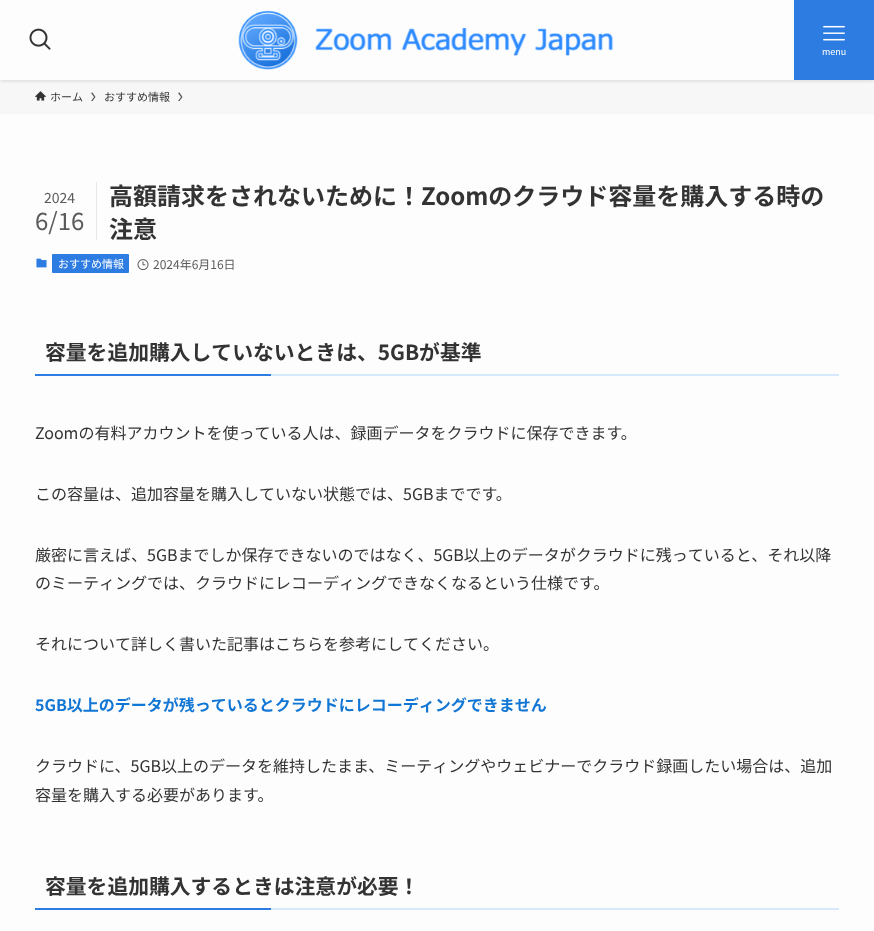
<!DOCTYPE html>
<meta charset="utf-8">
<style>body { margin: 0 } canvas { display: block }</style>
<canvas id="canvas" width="874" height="931"></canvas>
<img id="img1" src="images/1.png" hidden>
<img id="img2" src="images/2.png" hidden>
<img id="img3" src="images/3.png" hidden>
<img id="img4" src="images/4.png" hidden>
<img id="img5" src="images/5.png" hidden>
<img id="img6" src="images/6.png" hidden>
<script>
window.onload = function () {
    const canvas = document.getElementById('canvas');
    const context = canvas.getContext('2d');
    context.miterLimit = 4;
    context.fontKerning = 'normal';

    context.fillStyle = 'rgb(253, 253, 253)';
    context.fillRect(0, 0, 874, 931);
    context.fillStyle = 'rgb(247, 247, 247)';
    context.fillRect(0, 80, 874, 34);
    context.save();
    context.beginPath();
    context.rect(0, 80, 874, 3);
    context.clip();
    context.fillStyle = 'rgba(0, 0, 0, 0.12)';
    context.filter = 'blur(2px)';
    context.beginPath();
    context.rect(0, 1, 874, 80);
    context.fill();
    context.filter = 'none';
    context.restore();
    context.drawImage(document.getElementById('img1'), 29, 28, 22, 22);
    context.drawImage(document.getElementById('img2'), 238, 10, 376, 60);
    context.fillStyle = 'rgb(45, 124, 226)';
    context.fillRect(794, 0, 80, 80);
    context.drawImage(document.getElementById('img3'), 823, 25, 22, 16);
    context.drawImage(document.getElementById('img4'), 35, 91, 11, 10);
    context.fillStyle = 'rgb(90, 90, 90)';
    context.beginPath();
    context.moveTo(92.5, 92.5);
    context.lineTo(91, 93);
    context.lineTo(94, 97);
    context.lineTo(91, 101);
    context.lineTo(92.5, 101);
    context.lineTo(95.5, 97);
    context.closePath();
    context.fill();
    context.beginPath();
    context.moveTo(179.5, 92.5);
    context.lineTo(178, 93);
    context.lineTo(181, 97);
    context.lineTo(178, 101);
    context.lineTo(179.5, 101);
    context.lineTo(182.5, 97);
    context.closePath();
    context.fill();
    context.fillStyle = 'rgb(232, 232, 232)';
    context.fillRect(96, 182, 1, 58);
    context.drawImage(document.getElementById('img5'), 36, 258, 11, 10);
    context.fillStyle = 'rgb(45, 124, 226)';
    context.beginPath();
    context.roundRect(52, 254, 77, 19, 1);
    context.fill();
    context.drawImage(document.getElementById('img6'), 137, 259, 12, 12);
    context.fillRect(35, 374, 236, 2);
    context.fillStyle = 'rgb(214, 233, 253)';
    context.fillRect(271, 374, 568, 2);
    context.fillStyle = 'rgb(45, 124, 226)';
    context.fillRect(35, 908, 236, 2);
    context.fillStyle = 'rgb(214, 233, 253)';
    context.fillRect(271, 908, 568, 2);
    context.font = '9px Noto Sans JP';
    context.fillStyle = 'rgb(255, 255, 255)';
    context.fillText('menu', 822, 55);
    context.font = '11px Noto Sans JP';
    context.fillStyle = 'rgb(51, 51, 51)';
    context.fillText('ホーム', 50, 101);
    context.fillText('おすすめ情報', 104, 101);
    context.font = '14px Noto Sans JP';
    context.fillStyle = 'rgb(91, 91, 91)';
    context.fillText('2024', 44, 203);
    context.font = '24px Noto Sans JP';
    context.fillText('6/16', 35, 230);
    context.font = 'bold 24px Noto Sans JP';
    context.fillStyle = 'rgb(51, 51, 51)';
    context.fillText('高額請求をされないために！Zoomのクラウド容量を購入する時の', 109, 205);
    context.fillText('注意', 109, 238);
    context.font = '11px Noto Sans JP';
    context.fillStyle = 'rgb(255, 255, 255)';
    context.fillText('おすすめ情報', 58, 268);
    context.font = '12px Noto Sans JP';
    context.fillStyle = 'rgb(91, 91, 91)';
    context.fillText('2024年6月16日', 153, 269);
    context.font = 'bold 20.8px Noto Sans JP';
    context.fillStyle = 'rgb(51, 51, 51)';
    context.fillText('容量を追加購入していないときは、5GBが基準', 45, 360);
    context.font = '16px Noto Sans JP';
    context.fillText('Zoomの有料アカウントを使っている人は、録画データをクラウドに保存できます。', 35, 439);
    context.fillText('この容量は、追加容量を購入していない状態では、5GBまでです。', 35, 500);
    context.fillText('厳密に言えば、5GBまでしか保存できないのではなく、5GB以上のデータがクラウドに残っていると、それ以降', 35, 561);
    context.fillText('のミーティングでは、クラウドにレコーディングできなくなるという仕様です。', 35, 589);
    context.fillText('それについて詳しく書いた記事はこちらを参考にしてください。', 35, 650);
    context.font = 'bold 16px Noto Sans JP';
    context.fillStyle = 'rgb(17, 118, 212)';
    context.fillText('5GB以上のデータが残っているとクラウドにレコーディングできません', 35, 711);
    context.font = '16px Noto Sans JP';
    context.fillStyle = 'rgb(51, 51, 51)';
    context.fillText('クラウドに、5GB以上のデータを維持したまま、ミーティングやウェビナーでクラウド録画したい場合は、追加', 35, 772);
    context.fillText('容量を購入する必要があります。', 35, 801);
    context.font = 'bold 20.8px Noto Sans JP';
    context.fillText('容量を追加購入するときは注意が必要！', 45, 894);
};
</script>
